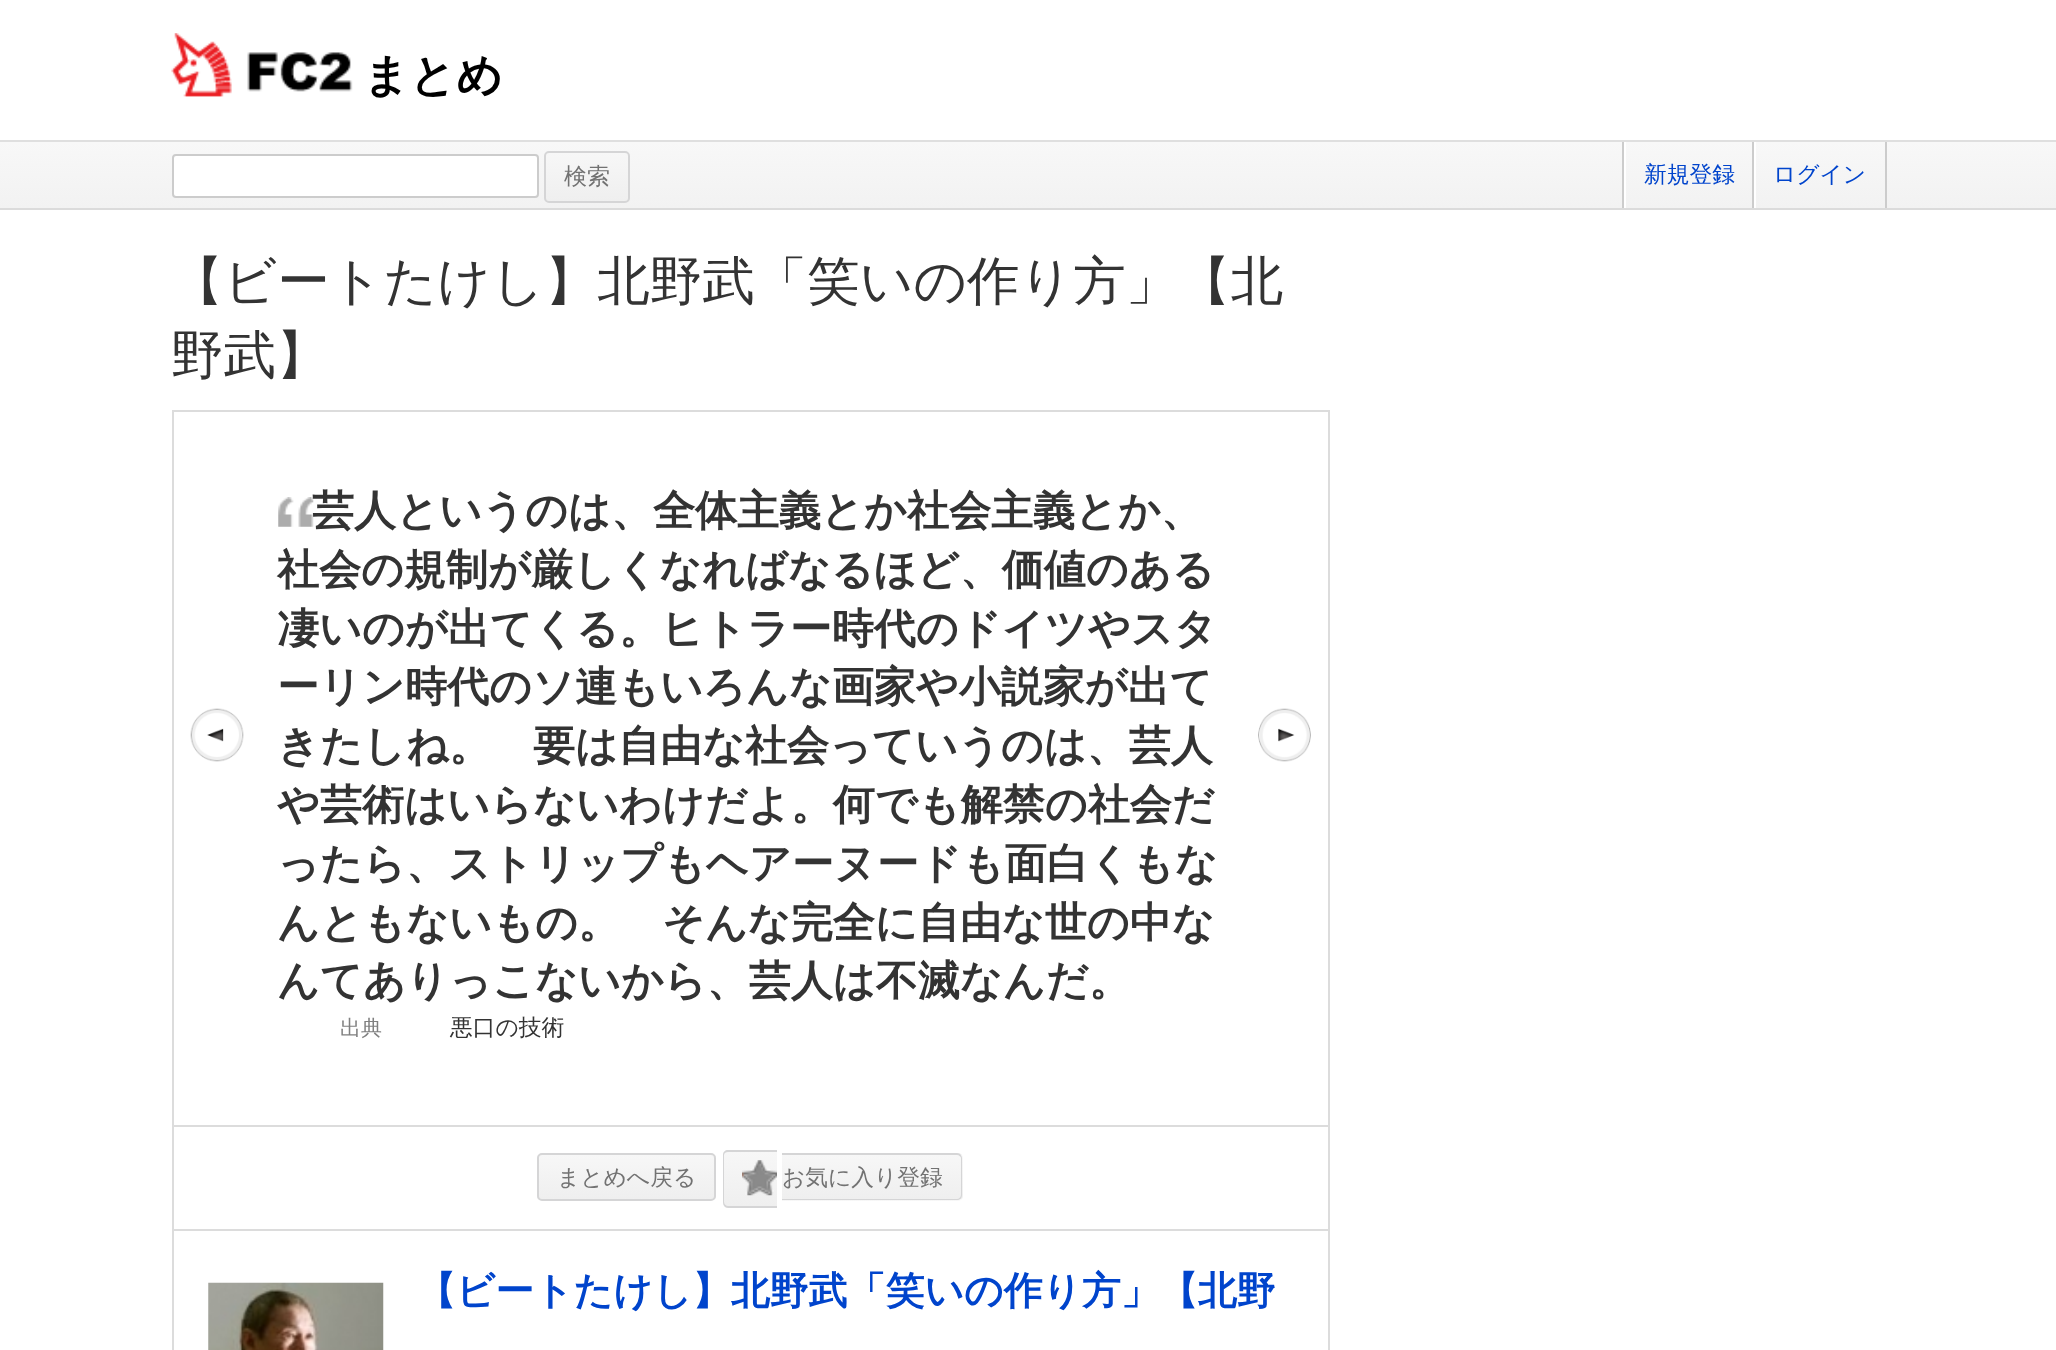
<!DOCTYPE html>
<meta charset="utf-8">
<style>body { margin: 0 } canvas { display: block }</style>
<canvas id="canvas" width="2056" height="1350"></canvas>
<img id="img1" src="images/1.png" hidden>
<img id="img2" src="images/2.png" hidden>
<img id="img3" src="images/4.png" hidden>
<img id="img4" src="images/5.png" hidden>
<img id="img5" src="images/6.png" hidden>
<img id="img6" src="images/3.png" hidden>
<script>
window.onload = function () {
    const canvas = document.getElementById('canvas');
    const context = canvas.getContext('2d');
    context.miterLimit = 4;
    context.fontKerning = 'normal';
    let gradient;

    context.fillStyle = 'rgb(255, 255, 255)';
    context.fillRect(0, 0, 2056, 1350);
    context.drawImage(document.getElementById('img1'), 171, 33, 182, 64);
    gradient = context.createLinearGradient(1028, 142, 1028, 208);
    gradient.addColorStop(0, 'rgb(248, 248, 248)');
    gradient.addColorStop(1, 'rgb(242, 242, 242)');
    context.fillStyle = gradient;
    context.fillRect(0, 142, 2056, 66);
    context.fillStyle = 'rgb(223, 223, 223)';
    context.fillRect(0, 140, 2056, 2);
    context.fillStyle = 'rgb(219, 219, 219)';
    context.fillRect(0, 208, 2056, 2);
    context.fillStyle = 'rgb(255, 255, 255)';
    context.beginPath();
    context.roundRect(173, 155, 365, 42, 3);
    context.fill();
    context.strokeStyle = 'rgb(204, 204, 204)';
    context.lineWidth = 2;
    context.stroke();
    context.save();
    context.beginPath();
    context.roundRect(544, 151, 86, 52, 5);
    context.clip();
    gradient = context.createLinearGradient(587, 152, 587, 201);
    gradient.addColorStop(0, 'rgb(247, 247, 247)');
    gradient.addColorStop(1, 'rgb(239, 239, 239)');
    context.fillStyle = gradient;
    context.fillRect(544, 152, 86, 49);
    context.restore();
    context.beginPath();
    context.roundRect(545, 152, 84, 50, 4);
    context.strokeStyle = 'rgb(213, 213, 214)';
    context.stroke();
    context.fillStyle = 'rgb(204, 204, 204)';
    context.fillRect(1622, 142, 2, 66);
    context.fillStyle = 'rgb(255, 255, 255)';
    context.fillRect(1624, 142, 2, 66);
    context.fillStyle = 'rgb(204, 204, 204)';
    context.fillRect(1885, 142, 2, 66);
    context.fillRect(1752, 142, 2, 66);
    context.fillStyle = 'rgb(255, 255, 255)';
    context.fillRect(1754, 142, 2, 66);
    context.strokeStyle = 'rgb(220, 220, 220)';
    context.strokeRect(173, 411, 1156, 715);
    context.drawImage(document.getElementById('img2'), 190, 708, 54, 54);
    context.drawImage(document.getElementById('img3'), 1258, 708, 53, 54);
    context.fillStyle = 'rgb(220, 220, 220)';
    context.fillRect(1328, 1127, 2, 102);
    context.fillRect(172, 1127, 2, 102);
    context.save();
    context.beginPath();
    context.roundRect(537, 1153, 179, 48, 5);
    context.clip();
    gradient = context.createLinearGradient(627, 1155, 627, 1199);
    gradient.addColorStop(0, 'rgb(247, 247, 247)');
    gradient.addColorStop(1, 'rgb(239, 239, 239)');
    context.fillStyle = gradient;
    context.fillRect(537, 1155, 179, 44);
    context.restore();
    context.beginPath();
    context.roundRect(538, 1154, 177, 46, 4);
    context.strokeStyle = 'rgb(213, 213, 214)';
    context.stroke();
    context.save();
    context.beginPath();
    context.roundRect(723, 1150, 54, 58, [5, 0, 0, 5]);
    context.clip();
    gradient = context.createLinearGradient(751, 1152, 751, 1206);
    gradient.addColorStop(0, 'rgb(247, 247, 247)');
    gradient.addColorStop(1, 'rgb(239, 239, 239)');
    context.fillStyle = gradient;
    context.fillRect(723, 1152, 54, 54);
    gradient = context.createLinearGradient(751, 1206, 751, 1260);
    gradient.addColorStop(0, 'rgb(247, 247, 247)');
    gradient.addColorStop(1, 'rgb(239, 239, 239)');
    context.fillStyle = gradient;
    context.fillRect(723, 1206, 5, 2);
    context.restore();
    context.fillStyle = 'rgb(213, 213, 214)';
    context.beginPath();
    context.moveTo(728, 1150);
    context.lineTo(777, 1150);
    context.lineTo(777, 1208);
    context.lineTo(728, 1208);
    context.bezierCurveTo(725, 1208, 723, 1205, 723, 1202);
    context.lineTo(723, 1155);
    context.bezierCurveTo(723, 1152, 725, 1150, 728, 1150);
    context.closePath();
    context.moveTo(728, 1152);
    context.lineTo(777, 1152);
    context.lineTo(777, 1206);
    context.lineTo(728, 1206);
    context.bezierCurveTo(726, 1206, 724, 1204, 724, 1202);
    context.lineTo(724, 1155);
    context.bezierCurveTo(724, 1153, 726, 1152, 728, 1152);
    context.closePath();
    context.fill('evenodd');
    context.drawImage(document.getElementById('img4'), 742, 1160, 35, 36);
    context.save();
    context.beginPath();
    context.roundRect(782, 1153, 181, 48, [0, 5, 5, 0]);
    context.clip();
    gradient = context.createLinearGradient(872, 1111, 872, 1155);
    gradient.addColorStop(0, 'rgb(247, 247, 247)');
    gradient.addColorStop(1, 'rgb(239, 239, 239)');
    context.fillStyle = gradient;
    context.fillRect(957, 1153, 6, 2);
    gradient = context.createLinearGradient(872, 1155, 872, 1199);
    gradient.addColorStop(0, 'rgb(247, 247, 247)');
    gradient.addColorStop(1, 'rgb(239, 239, 239)');
    context.fillStyle = gradient;
    context.fillRect(782, 1155, 181, 44);
    gradient = context.createLinearGradient(872, 1199, 872, 1243);
    gradient.addColorStop(0, 'rgb(247, 247, 247)');
    gradient.addColorStop(1, 'rgb(239, 239, 239)');
    context.fillStyle = gradient;
    context.fillRect(782, 1199, 181, 2);
    context.restore();
    context.beginPath();
    context.moveTo(782, 1153);
    context.lineTo(957, 1153);
    context.bezierCurveTo(960, 1153, 962, 1156, 962, 1158);
    context.lineTo(962, 1195);
    context.bezierCurveTo(962, 1198, 960, 1200, 957, 1200);
    context.lineTo(782, 1200);
    context.closePath();
    context.moveTo(782, 1155);
    context.lineTo(957, 1155);
    context.bezierCurveTo(959, 1155, 961, 1157, 961, 1158);
    context.lineTo(961, 1195);
    context.bezierCurveTo(961, 1197, 959, 1199, 957, 1199);
    context.lineTo(782, 1199);
    context.closePath();
    context.fill('evenodd');
    context.strokeStyle = 'rgb(220, 220, 220)';
    context.strokeRect(173, 1230, 1156, 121);
    context.drawImage(document.getElementById('img5'), 208, 1282, 176, 68);
    context.font = 'bold 45.5px WenQuanYi Zen Hei';
    context.fillStyle = 'rgb(0, 0, 0)';
    context.fillText('まとめ', 363, 91);
    context.font = '500 23px WenQuanYi Zen Hei';
    context.fillStyle = 'rgb(114, 114, 114)';
    context.fillText('検索', 564, 184);
    context.font = '500 22.75px WenQuanYi Zen Hei';
    context.fillStyle = 'rgb(0, 68, 204)';
    context.fillText('新規登録', 1644, 182);
    context.fillText('ログイン', 1773, 182);
    context.font = '500 52.5px WenQuanYi Zen Hei';
    context.fillStyle = 'rgb(51, 51, 51)';
    context.fillText('【ビートたけし】北野武「笑いの作り方」【北', 171, 299);
    context.fillText('野武】', 171, 373);
    context.font = 'bold 42px WenQuanYi Zen Hei';
    context.fillText('芸人というのは、全体主義とか社会主義とか、', 312, 525);
    context.drawImage(document.getElementById('img6'), 278, 497, 36, 30);
    context.fillText('社会の規制が厳しくなればなるほど、価値のある', 277, 584);
    context.fillText('凄いのが出てくる。ヒトラー時代のドイツやスタ', 277, 643);
    context.fillText('ーリン時代のソ連もいろんな画家や小説家が出て', 277, 701);
    context.fillText('きたしね。　要は自由な社会っていうのは、芸人', 277, 760);
    context.fillText('や芸術はいらないわけだよ。何でも解禁の社会だ', 277, 819);
    context.fillText('ったら、ストリップもヘアーヌードも面白くもな', 277, 878);
    context.fillText('んともないもの。　そんな完全に自由な世の中な', 277, 937);
    context.fillText('んてありっこないから、芸人は不滅なんだ。', 277, 995);
    context.font = '500 21px WenQuanYi Zen Hei';
    context.fillStyle = 'rgb(128, 128, 128)';
    context.fillText('出典', 340, 1035);
    context.font = '500 22.75px WenQuanYi Zen Hei';
    context.fillStyle = 'rgb(51, 51, 51)';
    context.fillText('悪口の技術', 450, 1035);
    context.fillStyle = 'rgb(114, 114, 114)';
    context.fillText('まとめへ戻る', 557, 1185);
    context.fillText('お気に入り登録', 782, 1185);
    context.font = 'bold 38.7px WenQuanYi Zen Hei';
    context.fillStyle = 'rgb(0, 68, 204)';
    context.fillText('【ビートたけし】北野武「笑いの作り方」【北野', 417, 1304);
};
</script>
